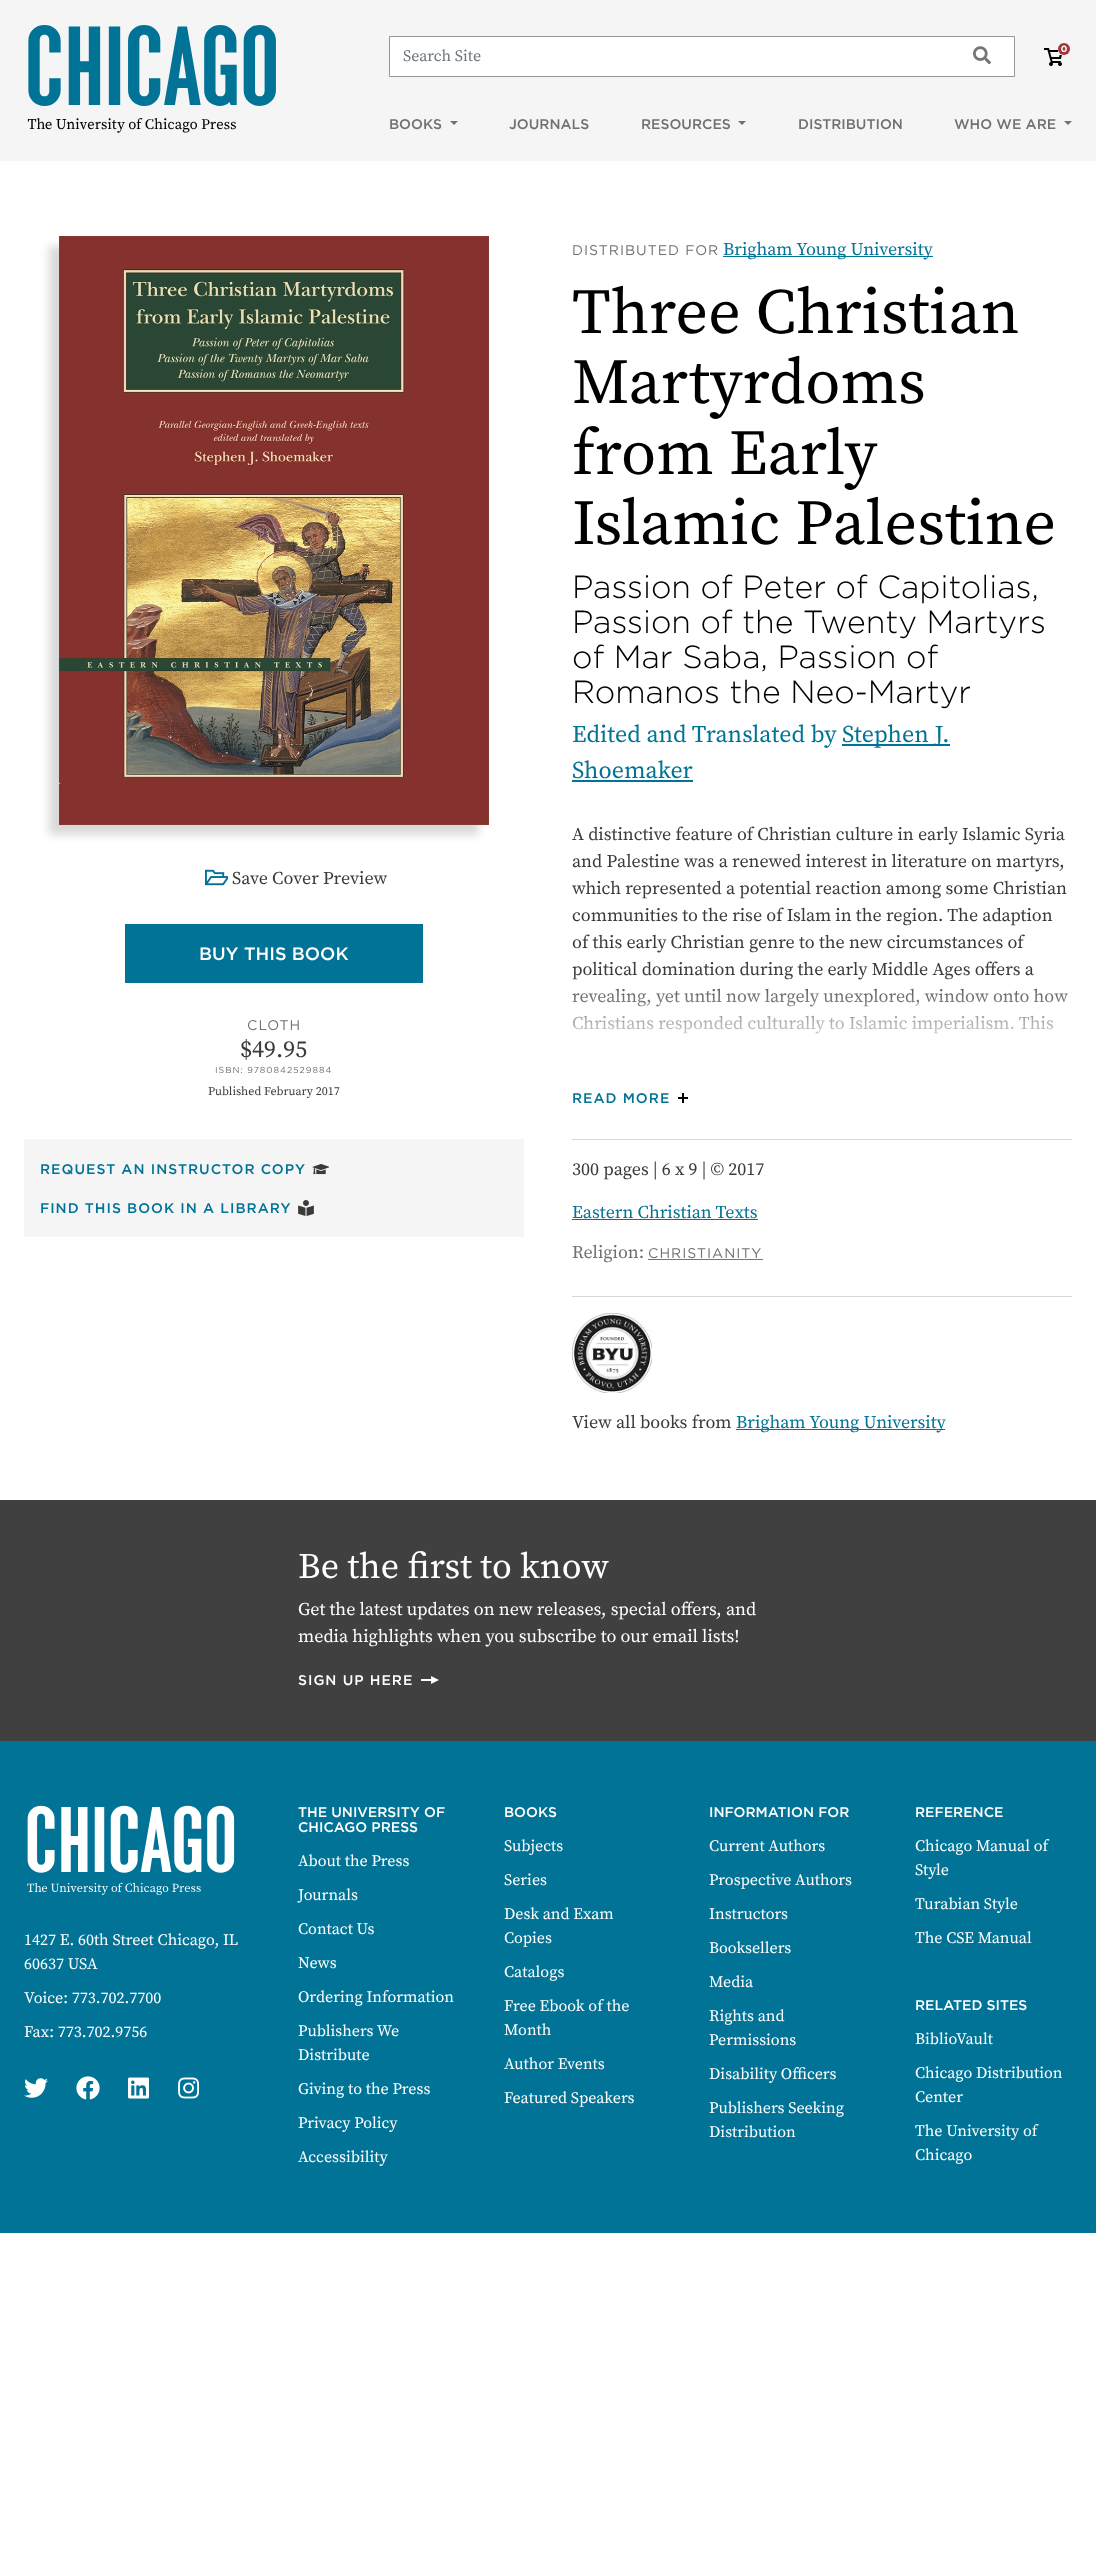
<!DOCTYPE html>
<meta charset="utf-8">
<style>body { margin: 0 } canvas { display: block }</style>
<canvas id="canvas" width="1096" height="2574"></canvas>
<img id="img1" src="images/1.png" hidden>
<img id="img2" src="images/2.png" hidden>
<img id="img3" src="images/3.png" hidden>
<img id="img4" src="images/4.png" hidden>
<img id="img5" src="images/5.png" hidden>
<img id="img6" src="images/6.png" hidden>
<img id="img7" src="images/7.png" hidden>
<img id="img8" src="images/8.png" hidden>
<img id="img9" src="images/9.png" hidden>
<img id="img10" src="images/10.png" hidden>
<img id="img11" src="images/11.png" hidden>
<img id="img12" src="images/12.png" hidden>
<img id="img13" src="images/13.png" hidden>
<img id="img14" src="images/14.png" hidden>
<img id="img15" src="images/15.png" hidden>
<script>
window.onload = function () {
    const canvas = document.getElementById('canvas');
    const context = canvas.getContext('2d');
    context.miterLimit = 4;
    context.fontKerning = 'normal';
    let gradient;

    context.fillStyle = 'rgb(255, 255, 255)';
    context.fillRect(0, 0, 1096, 2574);
    context.fillStyle = 'rgb(245, 245, 245)';
    context.fillRect(0, 0, 1096, 161);
    context.drawImage(document.getElementById('img1'), 27, 25, 249, 108);
    context.fillStyle = 'rgb(255, 255, 255)';
    context.beginPath();
    context.rect(389.5, 36.5, 625, 40);
    context.fill();
    context.strokeStyle = 'rgb(151, 151, 151)';
    context.stroke();
    context.drawImage(document.getElementById('img2'), 973, 46, 18, 19);
    context.drawImage(document.getElementById('img3'), 1044, 48, 18, 18);
    context.drawImage(document.getElementById('img4'), 1058, 42, 12, 13);
    context.fillStyle = 'rgb(112, 112, 112)';
    context.beginPath();
    context.moveTo(450, 121);
    context.lineTo(458, 121);
    context.lineTo(454, 125);
    context.closePath();
    context.fill();
    context.beginPath();
    context.moveTo(738, 121);
    context.lineTo(746, 121);
    context.lineTo(742, 125);
    context.closePath();
    context.fill();
    context.beginPath();
    context.moveTo(1064, 121);
    context.lineTo(1072, 121);
    context.lineTo(1068, 125);
    context.closePath();
    context.fill();
    context.fillStyle = 'rgba(0, 0, 0, 0.15)';
    context.filter = 'blur(4px)';
    context.beginPath();
    context.rect(49, 246, 430, 589);
    context.fill();
    context.filter = 'none';
    context.drawImage(document.getElementById('img5'), 59, 236, 430, 589);
    context.drawImage(document.getElementById('img6'), 205, 869, 23, 17);
    context.fillStyle = 'rgb(0, 115, 150)';
    context.fillRect(125, 924, 298, 59);
    context.fillStyle = 'rgb(245, 245, 245)';
    context.fillRect(24, 1139, 500, 98);
    context.drawImage(document.getElementById('img7'), 312, 1164, 17, 11);
    context.drawImage(document.getElementById('img8'), 298, 1200, 16, 16);
    context.fillStyle = 'rgb(0, 115, 150)';
    context.fillRect(723, 256, 210, 1);
    context.fillRect(842, 744, 108, 2);
    context.fillRect(572, 780, 121, 2);
    context.drawImage(document.getElementById('img9'), 678, 1093, 10, 10);
    context.fillStyle = 'rgb(216, 216, 216)';
    context.fillRect(572, 1139, 500, 1);
    context.fillStyle = 'rgb(0, 115, 150)';
    context.fillRect(572, 1219, 186, 1);
    context.fillStyle = 'rgb(117, 117, 117)';
    context.fillRect(648, 1259, 115, 1);
    context.fillStyle = 'rgb(216, 216, 216)';
    context.fillRect(572, 1296, 500, 1);
    context.drawImage(document.getElementById('img10'), 572, 1313, 80, 80);
    context.fillStyle = 'rgb(0, 115, 150)';
    context.fillRect(736, 1429, 209, 1);
    context.fillStyle = 'rgb(64, 64, 64)';
    context.fillRect(0, 1500, 1096, 241);
    context.fillStyle = 'rgb(255, 255, 255)';
    context.beginPath();
    context.moveTo(439, 1680);
    context.lineTo(431, 1684);
    context.lineTo(431, 1676);
    context.closePath();
    context.fill('evenodd');
    context.fillRect(421, 1679, 12, 2);
    context.fillStyle = 'rgb(0, 115, 150)';
    context.fillRect(0, 1741, 1096, 492);
    context.drawImage(document.getElementById('img11'), 27, 1805, 208, 90);
    context.drawImage(document.getElementById('img12'), 24, 2078, 24, 20);
    context.drawImage(document.getElementById('img13'), 76, 2076, 24, 24);
    context.drawImage(document.getElementById('img14'), 128, 2077, 21, 22);
    context.drawImage(document.getElementById('img15'), 178, 2077, 22, 22);
    context.font = '16px Source Serif Pro';
    context.fillStyle = 'rgb(108, 117, 125)';
    context.fillText('Search Site', 403, 61);
    context.font = '300 14px "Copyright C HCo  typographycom"';
    context.fillStyle = 'rgb(112, 112, 112)';
    context.fillText('BOOKS', 389, 129);
    context.fillText('JOURNALS', 509, 129);
    context.fillText('RESOURCES', 641, 129);
    context.fillText('DISTRIBUTION', 798, 129);
    context.fillText('WHO WE ARE', 954, 129);
    context.font = '18px Source Serif Pro';
    context.fillStyle = 'rgb(58, 58, 58)';
    context.fillText('Save Cover Preview', 232, 884);
    context.font = '300 18px "Copyright C HCo  typographycom"';
    context.fillStyle = 'rgb(255, 255, 255)';
    context.fillText('BUY THIS BOOK', 199, 960);
    context.letterSpacing = '1px';
    context.font = '300 14px "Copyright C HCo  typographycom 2"';
    context.fillStyle = 'rgb(112, 112, 112)';
    context.fillText('CLOTH', 247, 1030);
    context.letterSpacing = '0px';
    context.font = '24px Source Serif Pro';
    context.fillStyle = 'rgb(58, 58, 58)';
    context.fillText('$49.95', 240, 1057);
    context.letterSpacing = '1px';
    context.font = '300 8.75px "Copyright C HCo  typographycom 2"';
    context.fillStyle = 'rgb(112, 112, 112)';
    context.fillText('ISBN: 9780842529884', 215, 1073);
    context.letterSpacing = '0px';
    context.font = '12px Source Serif Pro';
    context.fillStyle = 'rgb(58, 58, 58)';
    context.fillText('Published February 2017', 208, 1095);
    context.letterSpacing = '1px';
    context.font = '300 14px "Copyright C HCo  typographycom"';
    context.fillStyle = 'rgb(0, 115, 150)';
    context.fillText('REQUEST AN INSTRUCTOR COPY', 40, 1174);
    context.fillText('FIND THIS BOOK IN A LIBRARY', 40, 1213);
    context.font = '300 14px "Copyright C HCo  typographycom 2"';
    context.fillStyle = 'rgb(112, 112, 112)';
    context.fillText('DISTRIBUTED FOR', 572, 255);
    context.letterSpacing = '0px';
    context.font = '18px Source Serif Pro';
    context.fillStyle = 'rgb(0, 115, 150)';
    context.fillText('Brigham Young University', 723, 255);
    context.font = '64px Source Serif Pro';
    context.fillStyle = 'rgb(0, 0, 0)';
    context.fillText('Three Christian', 572, 333);
    context.fillText('Martyrdoms', 572, 403);
    context.fillText('from Early', 572, 474);
    context.fillText('Islamic Palestine', 572, 544);
    context.font = '300 32px "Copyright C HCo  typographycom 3"';
    context.fillText('Passion of Peter of Capitolias,', 572, 598);
    context.fillText('Passion of the Twenty Martyrs', 572, 633);
    context.fillText('of Mar Saba, Passion of', 572, 668);
    context.fillText('Romanos the Neo-Martyr', 572, 703);
    context.font = '24px Source Serif Pro';
    context.fillStyle = 'rgb(0, 115, 150)';
    context.fillText('Edited and Translated by', 572, 742);
    context.fillText('Stephen J.', 842, 742);
    context.fillText('Shoemaker', 572, 778);
    context.font = '18px Source Serif Pro';
    context.fillStyle = 'rgb(58, 58, 58)';
    context.fillText('A distinctive feature of Christian culture in early Islamic Syria', 572, 840);
    context.fillText('and Palestine was a renewed interest in literature on martyrs,', 572, 867);
    context.fillText('which represented a potential reaction among some Christian', 572, 894);
    context.fillText('communities to the rise of Islam in the region. The adaption', 572, 921);
    context.fillText('of this early Christian genre to the new circumstances of', 572, 948);
    context.fillText('political domination during the early Middle Ages offers a', 572, 975);
    context.fillText('revealing, yet until now largely unexplored, window onto how', 572, 1002);
    context.fillText('Christians responded culturally to Islamic imperialism. This', 572, 1029);
    gradient = context.createLinearGradient(822, 974, 822, 1064);
    gradient.addColorStop(0, 'rgba(255, 255, 255, 0)');
    gradient.addColorStop(0.9, 'rgb(255, 255, 255)');
    context.fillStyle = gradient;
    context.fillRect(572, 976, 496, 58);
    context.letterSpacing = '1px';
    context.font = '300 14px "Copyright C HCo  typographycom"';
    context.fillStyle = 'rgb(0, 115, 150)';
    context.fillText('READ MORE', 572, 1103);
    context.letterSpacing = '0px';
    context.font = '18px Source Serif Pro';
    context.fillStyle = 'rgb(58, 58, 58)';
    context.fillText('300 pages | 6 x 9 | © 2017', 572, 1175);
    context.fillStyle = 'rgb(0, 115, 150)';
    context.fillText('Eastern Christian Texts', 572, 1218);
    context.fillStyle = 'rgb(112, 112, 112)';
    context.fillText('Religion:', 572, 1258);
    context.letterSpacing = '1px';
    context.font = '300 14px "Copyright C HCo  typographycom 2"';
    context.fillText('CHRISTIANITY', 648, 1258);
    context.letterSpacing = '0px';
    context.font = '18px Source Serif Pro';
    context.fillStyle = 'rgb(58, 58, 58)';
    context.fillText('View all books from', 572, 1428);
    context.fillStyle = 'rgb(0, 115, 150)';
    context.fillText('Brigham Young University', 736, 1428);
    context.font = '36px Source Serif Pro';
    context.fillStyle = 'rgb(255, 255, 255)';
    context.fillText('Be the first to know', 298, 1578);
    context.font = '18px Source Serif Pro';
    context.fillText('Get the latest updates on new releases, special offers, and', 298, 1615);
    context.fillText('media highlights when you subscribe to our email lists!', 298, 1642);
    context.letterSpacing = '1px';
    context.font = '300 14px "Copyright C HCo  typographycom"';
    context.fillText('SIGN UP HERE', 298, 1685);
    context.letterSpacing = '0px';
    context.font = '16px Source Serif Pro';
    context.fillText('1427 E. 60th Street Chicago, IL', 24, 1945);
    context.fillText('60637 USA', 24, 1969);
    context.fillText('Voice: 773.702.7700', 24, 2003);
    context.fillText('Fax: 773.702.9756', 24, 2037);
    context.font = '300 14px "Copyright C HCo  typographycom"';
    context.fillText('THE UNIVERSITY OF', 298, 1817);
    context.fillText('CHICAGO PRESS', 298, 1832);
    context.font = '16px Source Serif Pro';
    context.fillText('About the Press', 298, 1866);
    context.fillText('Journals', 298, 1900);
    context.fillText('Contact Us', 298, 1934);
    context.fillText('News', 298, 1968);
    context.fillText('Ordering Information', 298, 2002);
    context.fillText('Publishers We', 298, 2036);
    context.fillText('Distribute', 298, 2060);
    context.fillText('Giving to the Press', 298, 2094);
    context.fillText('Privacy Policy', 298, 2128);
    context.fillText('Accessibility', 298, 2162);
    context.font = '300 14px "Copyright C HCo  typographycom"';
    context.fillText('BOOKS', 504, 1817);
    context.font = '16px Source Serif Pro';
    context.fillText('Subjects', 504, 1851);
    context.fillText('Series', 504, 1885);
    context.fillText('Desk and Exam', 504, 1919);
    context.fillText('Copies', 504, 1943);
    context.fillText('Catalogs', 504, 1977);
    context.fillText('Free Ebook of the', 504, 2011);
    context.fillText('Month', 504, 2035);
    context.fillText('Author Events', 504, 2069);
    context.fillText('Featured Speakers', 504, 2103);
    context.font = '300 14px "Copyright C HCo  typographycom"';
    context.fillText('INFORMATION FOR', 709, 1817);
    context.font = '16px Source Serif Pro';
    context.fillText('Current Authors', 709, 1851);
    context.fillText('Prospective Authors', 709, 1885);
    context.fillText('Instructors', 709, 1919);
    context.fillText('Booksellers', 709, 1953);
    context.fillText('Media', 709, 1987);
    context.fillText('Rights and', 709, 2021);
    context.fillText('Permissions', 709, 2045);
    context.fillText('Disability Officers', 709, 2079);
    context.fillText('Publishers Seeking', 709, 2113);
    context.fillText('Distribution', 709, 2137);
    context.font = '300 14px "Copyright C HCo  typographycom"';
    context.fillText('REFERENCE', 915, 1817);
    context.font = '16px Source Serif Pro';
    context.fillText('Chicago Manual of', 915, 1851);
    context.fillText('Style', 915, 1875);
    context.fillText('Turabian Style', 915, 1909);
    context.fillText('The CSE Manual', 915, 1943);
    context.font = '300 14px "Copyright C HCo  typographycom"';
    context.fillText('RELATED SITES', 915, 2010);
    context.font = '16px Source Serif Pro';
    context.fillText('BiblioVault', 915, 2044);
    context.fillText('Chicago Distribution', 915, 2078);
    context.fillText('Center', 915, 2102);
    context.fillText('The University of', 915, 2136);
    context.fillText('Chicago', 915, 2160);
};
</script>
